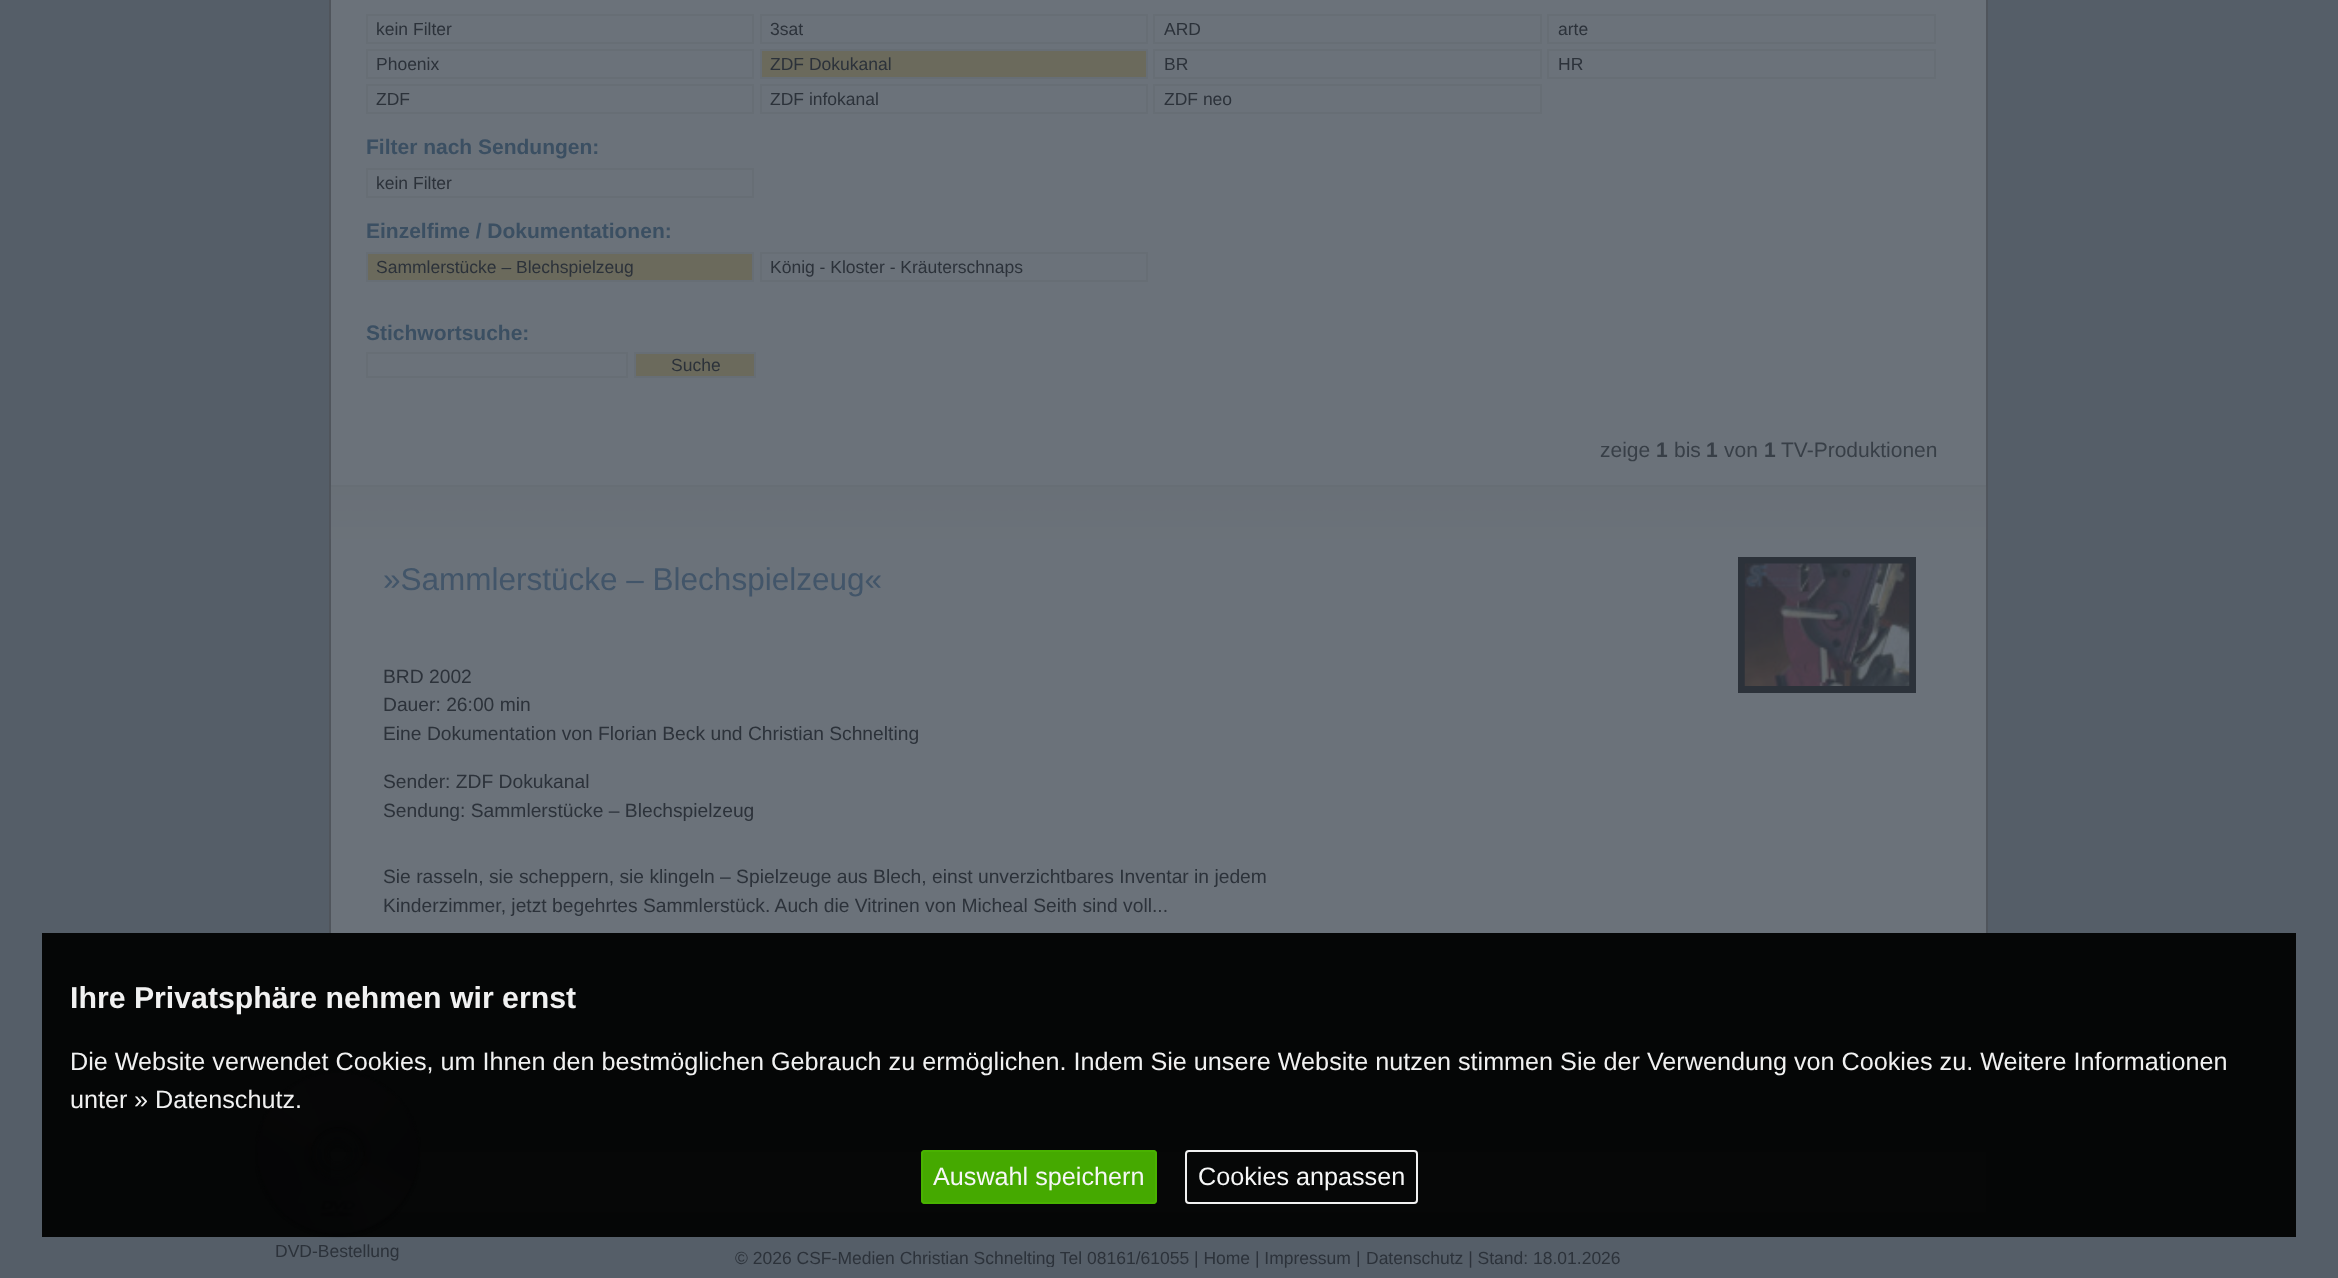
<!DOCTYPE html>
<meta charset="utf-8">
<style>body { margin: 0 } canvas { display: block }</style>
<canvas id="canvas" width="2338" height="1278"></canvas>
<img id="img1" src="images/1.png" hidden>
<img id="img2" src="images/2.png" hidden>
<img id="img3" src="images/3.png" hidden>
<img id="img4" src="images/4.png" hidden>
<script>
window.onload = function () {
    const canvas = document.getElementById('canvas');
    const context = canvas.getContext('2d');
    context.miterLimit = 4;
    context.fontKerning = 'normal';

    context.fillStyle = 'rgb(85, 94, 104)';
    context.fillRect(0, 0, 2338, 1278);
    context.fillStyle = 'rgb(5, 6, 6)';
    context.fillRect(42, 933, 2254, 304);
    context.fillStyle = 'rgb(107, 114, 122)';
    context.fillRect(331, 0, 1655, 933);
    context.fillStyle = 'rgb(80, 85, 92)';
    context.fillRect(1986, 0, 2, 933);
    context.fillRect(329, 0, 2, 933);
    context.strokeStyle = 'rgb(103, 110, 117)';
    context.lineWidth = 2;
    context.strokeRect(367, 15, 386, 28);
    context.strokeRect(761, 15, 386, 28);
    context.strokeRect(1154, 15, 387, 28);
    context.strokeRect(1548, 15, 387, 28);
    context.strokeRect(367, 50, 386, 28);
    context.fillStyle = 'rgb(107, 106, 92)';
    context.beginPath();
    context.rect(761, 50, 386, 28);
    context.fill();
    context.stroke();
    context.strokeRect(1154, 50, 387, 28);
    context.strokeRect(1548, 50, 387, 28);
    context.strokeRect(367, 85, 386, 28);
    context.strokeRect(761, 85, 386, 28);
    context.strokeRect(1154, 85, 387, 28);
    context.strokeRect(367, 169, 386, 28);
    context.beginPath();
    context.rect(367, 253, 386, 28);
    context.fill();
    context.stroke();
    context.strokeRect(761, 253, 386, 28);
    context.strokeRect(367, 353, 260, 24);
    context.beginPath();
    context.rect(635, 353, 120, 24);
    context.fill();
    context.stroke();
    context.drawImage(document.getElementById('img1'), 330, 486, 1657, 53);
    context.fillStyle = 'rgb(103, 110, 117)';
    context.fillRect(331, 485, 1655, 2);
    context.strokeStyle = 'rgb(44, 50, 58)';
    context.lineWidth = 7;
    context.strokeRect(1741.5, 560.5, 171, 129);
    context.drawImage(document.getElementById('img2'), 1744, 563, 166, 123);
    context.drawImage(document.getElementById('img3'), 331, 1152, 1655, 61);
    context.fillStyle = 'rgb(69, 169, 0)';
    context.beginPath();
    context.roundRect(921, 1150, 236, 54, 4);
    context.fill();
    context.beginPath();
    context.roundRect(922, 1151, 234, 52, 3);
    context.strokeStyle = 'rgba(73, 179, 0, 0.94)';
    context.lineWidth = 2;
    context.stroke();
    context.beginPath();
    context.roundRect(1186, 1151, 231, 52, 3);
    context.strokeStyle = 'rgb(241, 241, 241)';
    context.stroke();
    context.drawImage(document.getElementById('img4'), 255, 1070, 166, 168);
    context.font = '17.5px Liberation Sans';
    context.fillStyle = 'rgb(44, 50, 58)';
    context.fillText('kein Filter', 376, 35);
    context.fillText('3sat', 770, 35);
    context.fillText('ARD', 1164, 35);
    context.fillText('arte', 1558, 35);
    context.fillText('Phoenix', 376, 70);
    context.fillText('ZDF Dokukanal', 770, 70);
    context.fillText('BR', 1164, 70);
    context.fillText('HR', 1558, 70);
    context.fillText('ZDF', 376, 105);
    context.fillText('ZDF infokanal', 770, 105);
    context.fillText('ZDF neo', 1164, 105);
    context.font = 'bold 21px Liberation Sans';
    context.fillStyle = 'rgb(59, 79, 98)';
    context.fillText('Filter nach Sendungen:', 366, 154);
    context.font = '17.5px Liberation Sans';
    context.fillStyle = 'rgb(44, 50, 58)';
    context.fillText('kein Filter', 376, 189);
    context.font = 'bold 21px Liberation Sans';
    context.fillStyle = 'rgb(59, 79, 98)';
    context.fillText('Einzelfime / Dokumentationen:', 366, 238);
    context.font = '17.5px Liberation Sans';
    context.fillStyle = 'rgb(44, 50, 58)';
    context.fillText('Sammlerstücke – Blechspielzeug', 376, 273);
    context.fillText('König - Kloster - Kräuterschnaps', 770, 273);
    context.font = 'bold 21px Liberation Sans';
    context.fillStyle = 'rgb(59, 79, 98)';
    context.fillText('Stichwortsuche:', 366, 340);
    context.font = '17.5px Liberation Sans';
    context.fillStyle = 'rgb(44, 50, 58)';
    context.fillText('Suche', 671, 371);
    context.font = '21px Liberation Sans';
    context.fillStyle = 'rgb(56, 63, 71)';
    context.fillText('zeige', 1600, 457);
    context.font = 'bold 21px Liberation Sans';
    context.fillText('1', 1656, 457);
    context.font = '21px Liberation Sans';
    context.fillText('bis', 1674, 457);
    context.font = 'bold 21px Liberation Sans';
    context.fillText('1', 1706, 457);
    context.font = '21px Liberation Sans';
    context.fillText('von', 1724, 457);
    context.font = 'bold 21px Liberation Sans';
    context.fillText('1', 1764, 457);
    context.font = '21px Liberation Sans';
    context.fillText('TV-Produktionen', 1781, 457);
    context.font = '31.5px Liberation Sans';
    context.fillStyle = 'rgb(66, 85, 105)';
    context.fillText('»Sammlerstücke – Blechspielzeug«', 383, 590);
    context.font = '19.25px Liberation Sans';
    context.fillStyle = 'rgb(44, 50, 58)';
    context.fillText('BRD 2002', 383, 683);
    context.fillText('Dauer: 26:00 min', 383, 711);
    context.fillText('Eine Dokumentation von Florian Beck und Christian Schnelting', 383, 740);
    context.fillText('Sender: ZDF Dokukanal', 383, 788);
    context.fillText('Sendung: Sammlerstücke – Blechspielzeug', 383, 817);
    context.fillText('Sie rasseln, sie scheppern, sie klingeln – Spielzeuge aus Blech, einst unverzichtbares Inventar in jedem', 383, 883);
    context.fillText('Kinderzimmer, jetzt begehrtes Sammlerstück. Auch die Vitrinen von Micheal Seith sind voll...', 383, 912);
    context.save();
    context.beginPath();
    context.rect(329, 0, 1698, 1267);
    context.clip();
    context.font = '17.5px Liberation Sans';
    context.fillText('© 2026 CSF-Medien Christian Schnelting Tel 08161/61055', 735, 1264);
    context.restore();
    context.font = '17.5px Liberation Sans';
    context.fillText('| Home | Impressum', 1194, 1264);
    context.save();
    context.beginPath();
    context.rect(329, 0, 1698, 1267);
    context.clip();
    context.fillText('|', 1356, 1264);
    context.restore();
    context.fillText('Datenschutz | Stand: 18.01.2026', 1366, 1264);
    context.font = 'bold 30.25px Liberation Sans';
    context.fillStyle = 'rgb(241, 241, 241)';
    context.fillText('Ihre Privatsphäre nehmen wir ernst', 70, 1008);
    context.font = '25.2px Liberation Sans';
    context.fillText('Die Website verwendet Cookies, um Ihnen den bestmöglichen Gebrauch zu ermöglichen. Indem Sie unsere Website nutzen stimmen Sie der Verwendung von Cookies zu. Weitere Informationen', 70, 1070);
    context.fillText('unter', 70, 1108);
    context.fillText('» Datenschutz', 134, 1108);
    context.fillStyle = 'rgb(246, 247, 247)';
    context.fillText('.', 295, 1108);
    context.fillText('Auswahl speichern', 933, 1185);
    context.fillText('Cookies anpassen', 1198, 1185);
    context.font = '17.5px Liberation Sans';
    context.fillStyle = 'rgb(44, 50, 58)';
    context.fillText('DVD-Bestellung', 275, 1257);
};
</script>
